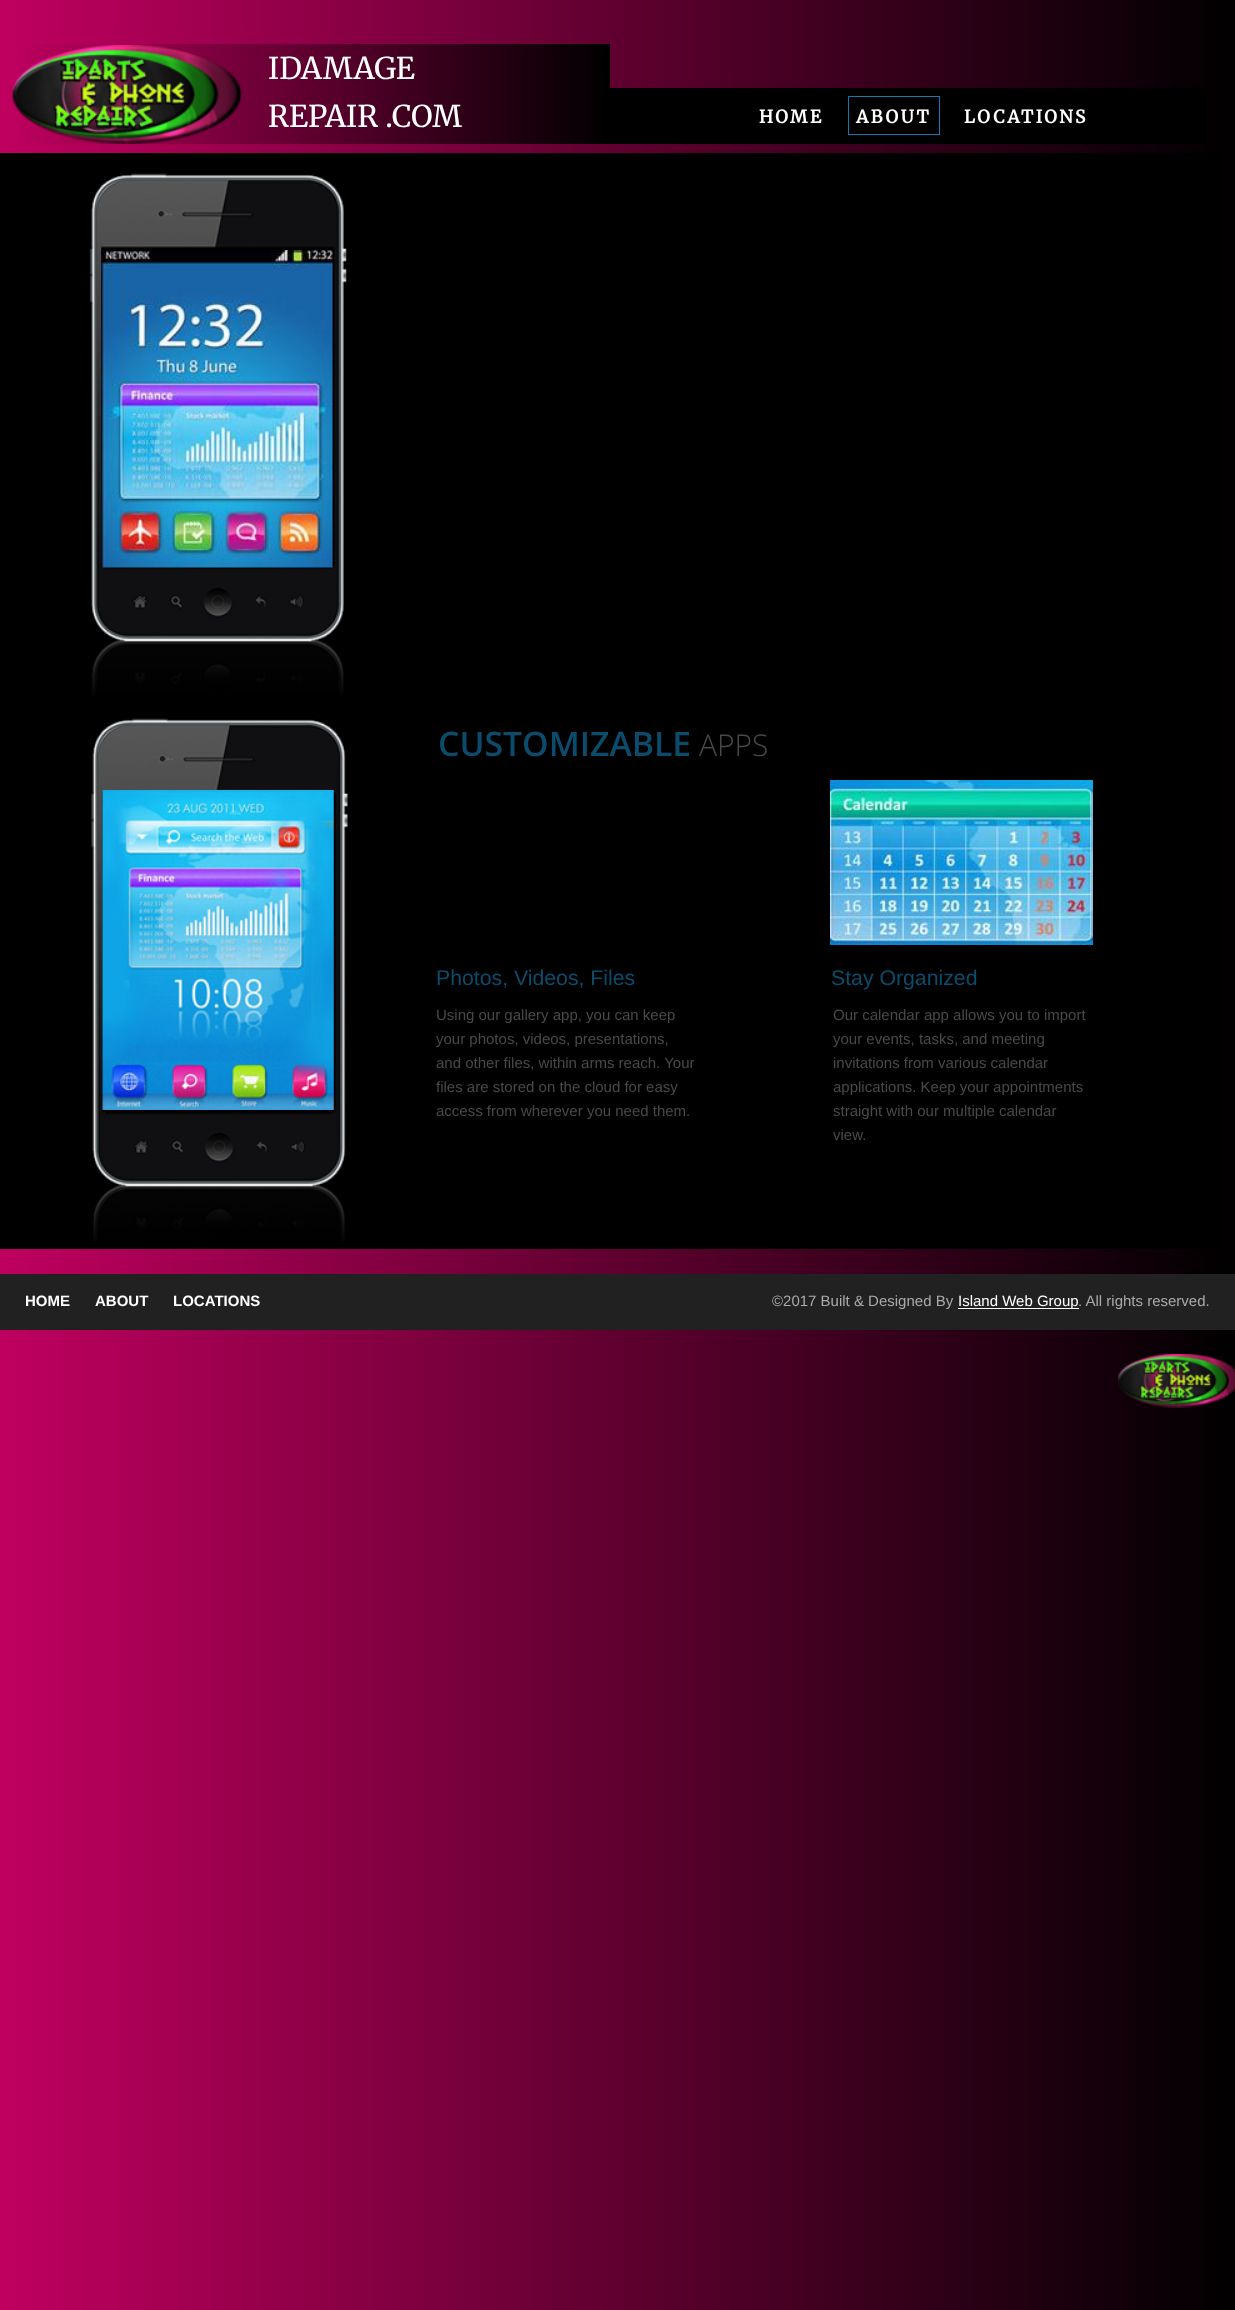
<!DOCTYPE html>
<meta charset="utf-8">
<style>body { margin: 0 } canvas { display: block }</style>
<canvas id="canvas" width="1235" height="2310"></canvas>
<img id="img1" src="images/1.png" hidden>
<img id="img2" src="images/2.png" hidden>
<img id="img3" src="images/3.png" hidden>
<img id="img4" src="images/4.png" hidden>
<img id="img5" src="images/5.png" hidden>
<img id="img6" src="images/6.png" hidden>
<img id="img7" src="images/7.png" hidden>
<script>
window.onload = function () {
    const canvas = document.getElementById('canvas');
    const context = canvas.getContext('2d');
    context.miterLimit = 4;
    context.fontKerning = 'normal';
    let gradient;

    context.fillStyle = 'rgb(255, 255, 255)';
    context.fillRect(0, 0, 1235, 2310);
    gradient = context.createLinearGradient(0, 1155, 1235, 1155);
    gradient.addColorStop(0, 'rgb(191, 0, 95)');
    gradient.addColorStop(1, 'rgb(0, 0, 0)');
    context.fillStyle = gradient;
    context.fillRect(0, 0, 1235, 2310);
    context.fillStyle = 'rgb(0, 0, 0)';
    context.fillRect(0, 153, 1219, 1096);
    gradient = context.createLinearGradient(3.8, 94, 610, 94);
    gradient.addColorStop(0, 'rgb(191, 0, 95)');
    gradient.addColorStop(1, 'rgb(0, 0, 0)');
    context.fillStyle = gradient;
    context.fillRect(21, 44, 589, 100);
    context.drawImage(document.getElementById('img1'), 12, 45, 230, 99);
    context.fillStyle = 'rgb(0, 0, 0)';
    context.fillRect(610, 88, 596, 56);
    context.strokeStyle = 'rgb(17, 121, 173)';
    context.strokeRect(848.5, 96.5, 91, 38);
    context.drawImage(document.getElementById('img2'), 90, 173, 257, 523);
    context.drawImage(document.getElementById('img3'), 101, 250, 232, 318);
    context.drawImage(document.getElementById('img4'), 91, 718, 257, 524);
    context.drawImage(document.getElementById('img5'), 102, 790, 232, 320);
    context.drawImage(document.getElementById('img6'), 830, 780, 263, 165);
    context.fillStyle = 'rgb(33, 33, 33)';
    context.fillRect(0, 1274, 1235, 56);
    context.fillStyle = 'rgb(255, 255, 255)';
    context.fillRect(958, 1308, 121, 1);
    context.drawImage(document.getElementById('img7'), 1118, 1354, 117, 54);
    context.font = '300 30px Merriweather';
    context.fillText('IDAMAGE', 268, 79);
    context.fillText('REPAIR .COM', 268, 127);
    context.letterSpacing = '2.5px';
    context.font = 'bold 17.5px Merriweather';
    context.fillText('HOME', 759, 123);
    context.fillText('ABOUT', 856, 123);
    context.fillText('LOCATIONS', 964, 123);
    context.letterSpacing = '0px';
    context.font = '600 33.75px Open Sans';
    context.fillStyle = 'rgb(11, 76, 109)';
    context.fillText('CUSTOMIZABLE', 438, 756);
    context.font = '300 30px Open Sans';
    context.fillStyle = 'rgb(73, 73, 73)';
    context.fillText('APPS', 699, 756);
    context.font = '21.25px Liberation Sans';
    context.fillStyle = 'rgb(11, 76, 109)';
    context.fillText('Photos, Videos, Files', 436, 985);
    context.fillText('Stay Organized', 831, 985);
    context.font = '15px Liberation Sans';
    context.fillStyle = 'rgb(73, 73, 73)';
    context.fillText('Using our gallery app, you can keep', 436, 1020);
    context.fillText('your photos, videos, presentations,', 436, 1044);
    context.fillText('and other files, within arms reach. Your', 436, 1068);
    context.fillText('files are stored on the cloud for easy', 436, 1092);
    context.fillText('access from wherever you need them.', 436, 1116);
    context.fillText('Our calendar app allows you to import', 833, 1020);
    context.fillText('your events, tasks, and meeting', 833, 1044);
    context.fillText('invitations from various calendar', 833, 1068);
    context.fillText('applications. Keep your appointments', 833, 1092);
    context.fillText('straight with our multiple calendar', 833, 1116);
    context.fillText('view.', 833, 1140);
    context.font = 'bold 15px Liberation Sans';
    context.fillStyle = 'rgb(255, 255, 255)';
    context.fillText('HOME', 25, 1306);
    context.fillText('ABOUT', 95, 1306);
    context.fillText('LOCATIONS', 173, 1306);
    context.font = '15px Liberation Sans';
    context.fillStyle = 'rgb(170, 170, 170)';
    context.fillText('©2017 Built & Designed By', 772, 1306);
    context.fillStyle = 'rgb(255, 255, 255)';
    context.fillText('Island Web Group', 958, 1306);
    context.fillStyle = 'rgb(170, 170, 170)';
    context.fillText('. All rights reserved.', 1078, 1306);
};
</script>
